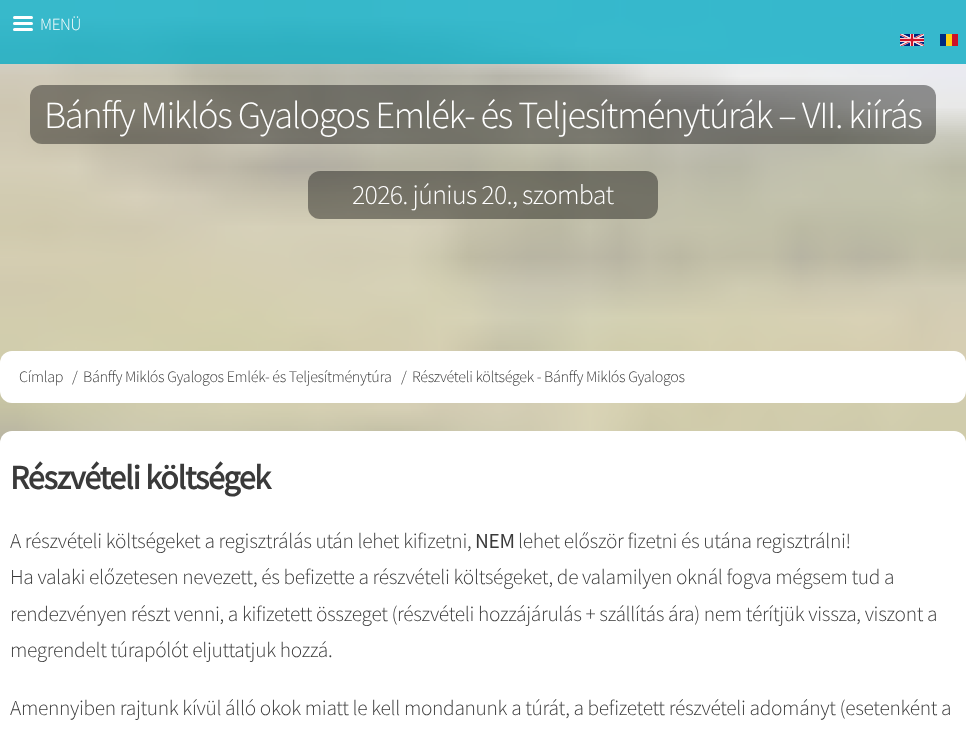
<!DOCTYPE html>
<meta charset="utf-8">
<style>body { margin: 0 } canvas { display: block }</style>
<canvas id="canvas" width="966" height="740"></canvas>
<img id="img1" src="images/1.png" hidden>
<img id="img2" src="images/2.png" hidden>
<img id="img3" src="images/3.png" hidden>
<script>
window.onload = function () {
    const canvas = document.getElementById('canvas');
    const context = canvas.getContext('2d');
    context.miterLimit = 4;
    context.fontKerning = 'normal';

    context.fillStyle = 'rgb(255, 255, 255)';
    context.fillRect(0, 0, 966, 740);
    context.drawImage(document.getElementById('img1'), 0, 0, 966, 443);
    context.fillStyle = 'rgba(9, 171, 195, 0.8)';
    context.fillRect(0, 0, 966, 64);
    context.fillStyle = 'rgb(255, 255, 255)';
    context.beginPath();
    context.roundRect(13, 16, 20, 3, 1.5);
    context.fill();
    context.beginPath();
    context.roundRect(13, 22, 20, 3, 1.5);
    context.fill();
    context.beginPath();
    context.roundRect(13, 28, 20, 3, 1.5);
    context.fill();
    context.drawImage(document.getElementById('img2'), 900, 34, 24, 12);
    context.drawImage(document.getElementById('img3'), 940, 34, 18, 12);
    context.fillStyle = 'rgba(0, 0, 0, 0.4)';
    context.beginPath();
    context.roundRect(30, 85, 906, 59, 12);
    context.fill();
    context.beginPath();
    context.roundRect(308, 171, 350, 48, 12);
    context.fill();
    context.fillStyle = 'rgb(255, 255, 255)';
    context.beginPath();
    context.roundRect(0, 351, 966, 52, 12);
    context.fill();
    context.beginPath();
    context.roundRect(0, 431, 966, 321, 12);
    context.fill();
    context.letterSpacing = '-0.32px';
    context.font = '300 17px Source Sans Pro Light';
    context.fillText('MENÜ', 40, 30);
    context.letterSpacing = '-1.35px';
    context.font = '300 38.4px Source Sans Pro Light';
    context.fillText('Bánffy Miklós Gyalogos Emlék- és Teljesítménytúrák – VII. kiírás', 44, 128);
    context.letterSpacing = '-0.7px';
    context.font = '300 27.75px Source Sans Pro Light';
    context.fillText('2026. június 20., szombat', 352, 204);
    context.letterSpacing = '-0.32px';
    context.font = '300 16px Source Sans Pro Light';
    context.fillStyle = 'rgb(58, 58, 58)';
    context.fillText('Címlap', 19, 382);
    context.fillText('/', 72, 382);
    context.fillText('Bánffy Miklós Gyalogos Emlék- és Teljesítménytúra', 83, 382);
    context.fillText('/', 401, 382);
    context.fillText('Részvételi költségek - Bánffy Miklós Gyalogos', 412, 382);
    context.letterSpacing = '-1.2px';
    context.font = 'bold 34px Source Sans Pro';
    context.fillText('Részvételi költségek', 10, 489);
    context.letterSpacing = '-0.32px';
    context.font = '300 21.35px Source Sans Pro Light';
    context.fillText('A részvételi költségeket a regisztrálás után lehet kifizetni,', 10, 548);
    context.font = '21.35px Source Sans Pro';
    context.fillText('NEM', 475, 548);
    context.font = '300 21.35px Source Sans Pro Light';
    context.fillText('lehet először fizetni és utána regisztrálni!', 518, 548);
    context.fillText('Ha valaki előzetesen nevezett, és befizette a részvételi költségeket, de valamilyen oknál fogva mégsem tud a', 10, 584);
    context.fillText('rendezvényen részt venni, a kifizetett összeget (részvételi hozzájárulás + szállítás ára) nem térítjük vissza, viszont a', 10, 621);
    context.fillText('megrendelt túrapólót eljuttatjuk hozzá.', 10, 657);
    context.fillText('Amennyiben rajtunk kívül álló okok miatt le kell mondanunk a túrát, a befizetett részvételi adományt (esetenként a', 10, 715);
};
</script>
